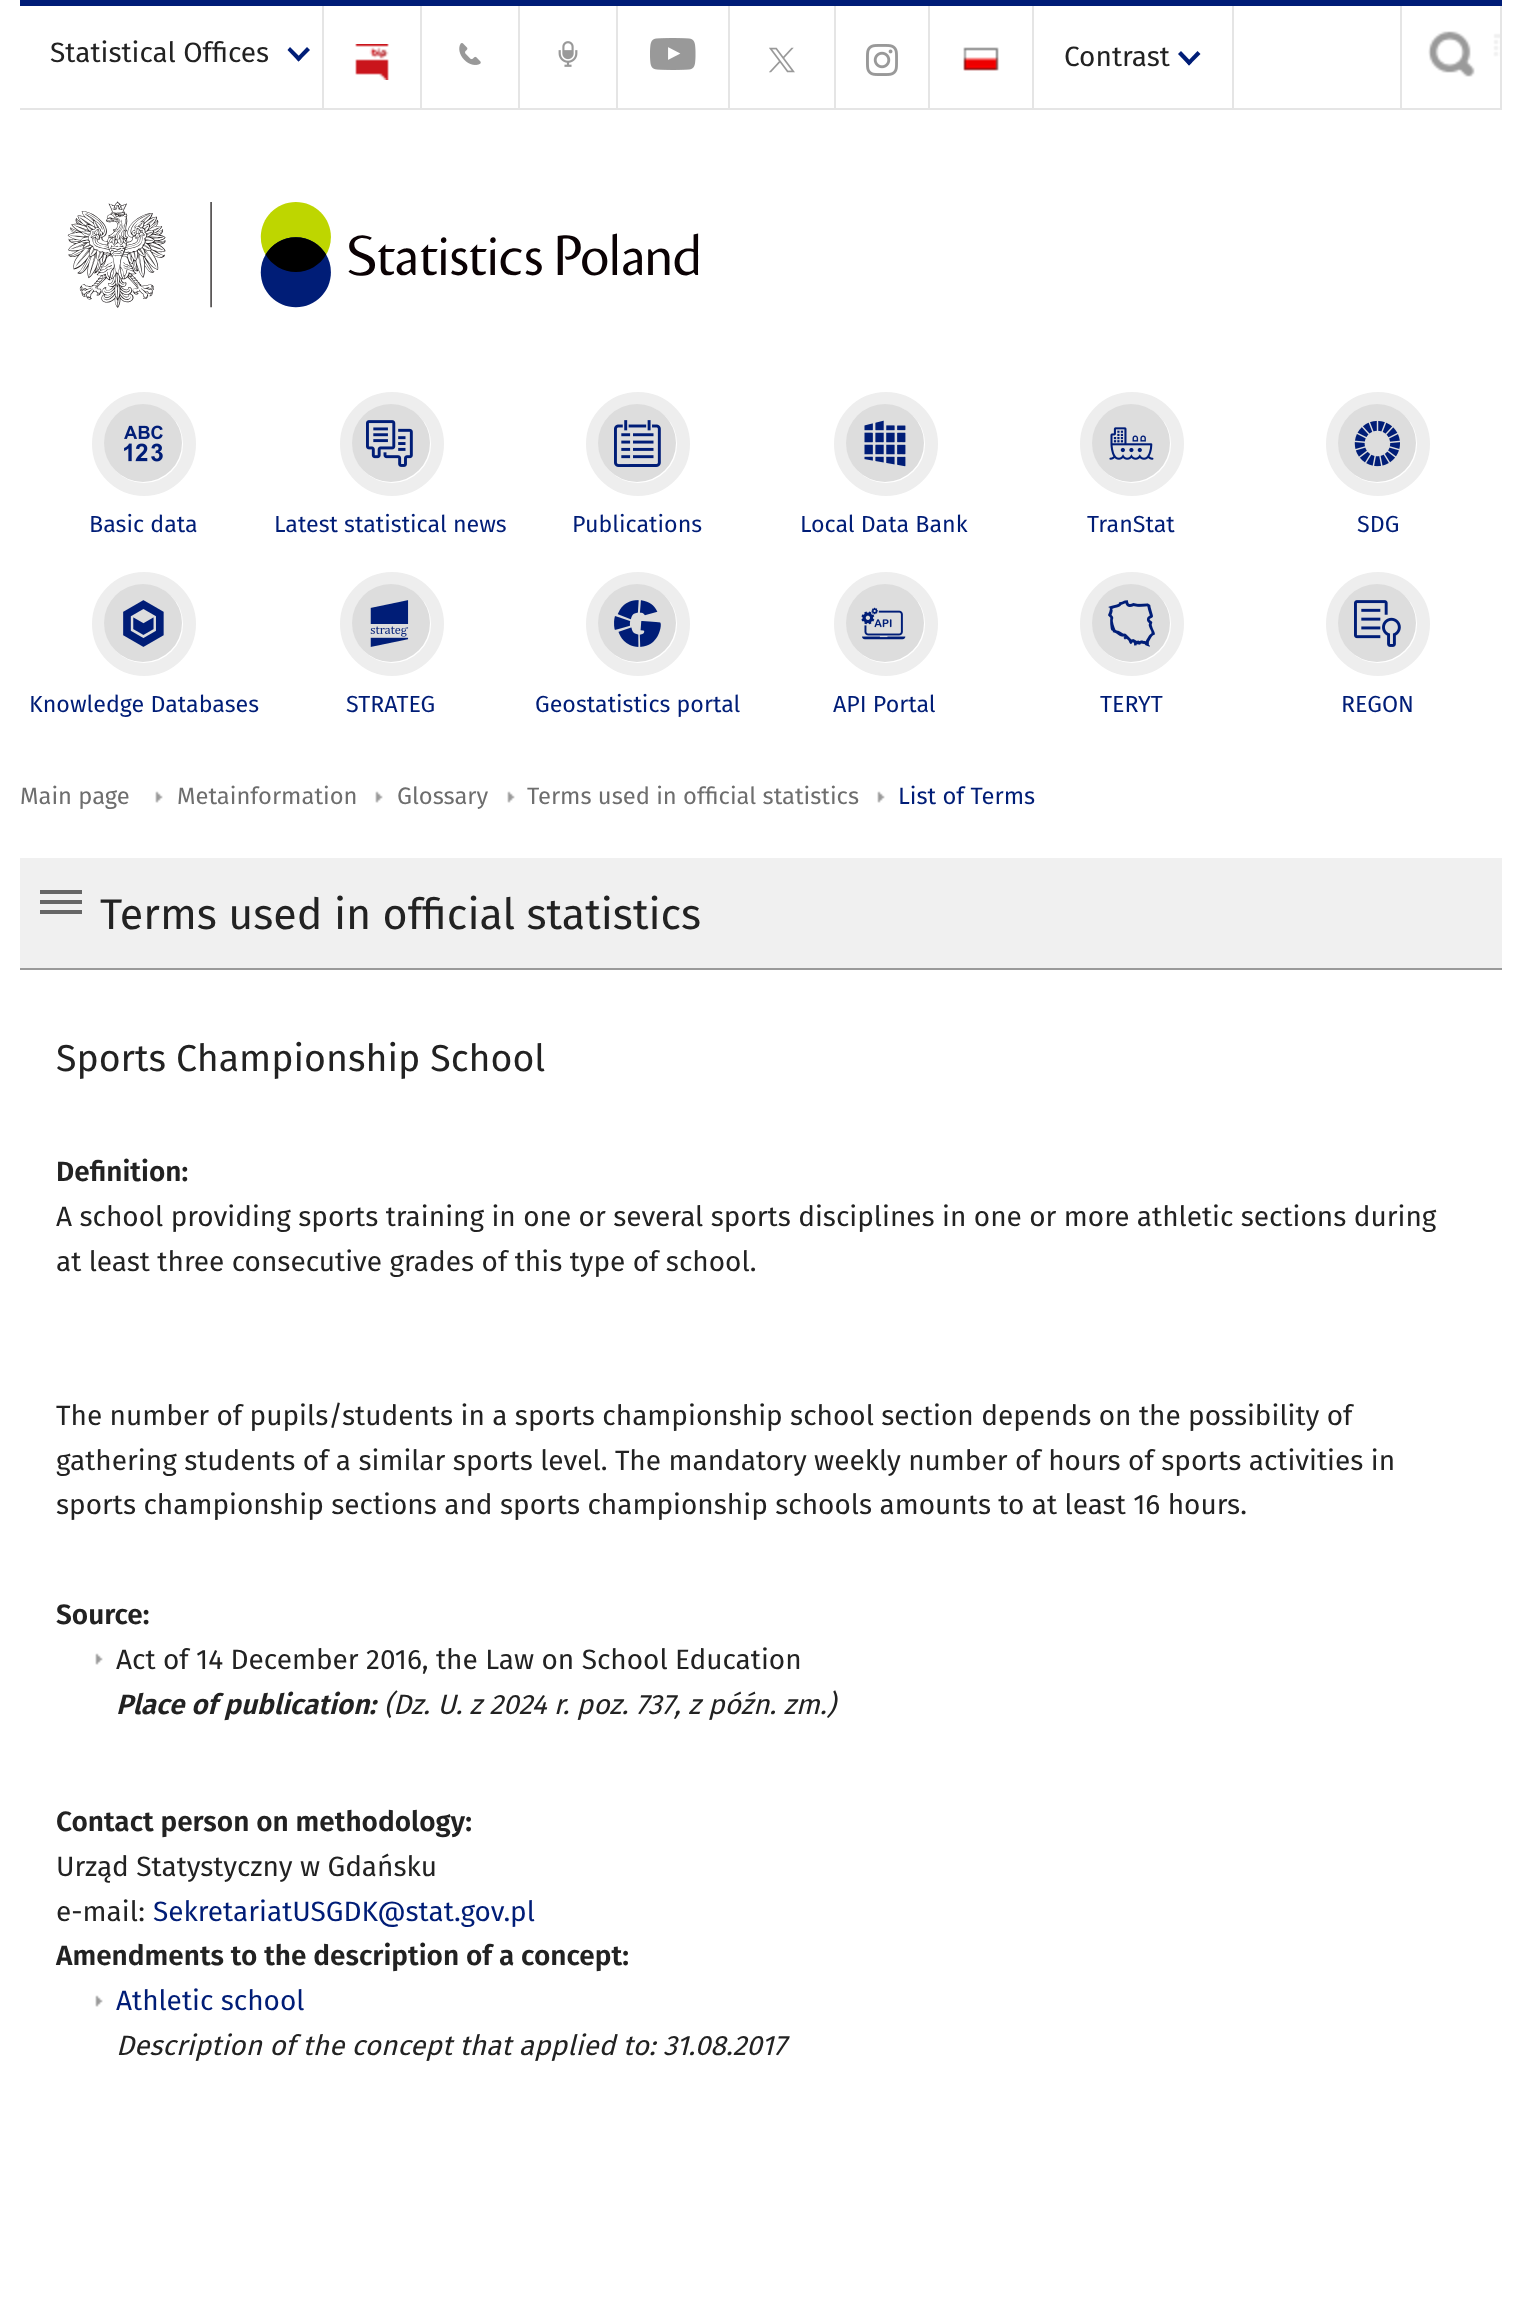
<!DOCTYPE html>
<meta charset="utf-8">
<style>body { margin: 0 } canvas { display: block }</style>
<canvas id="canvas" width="1521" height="2313"></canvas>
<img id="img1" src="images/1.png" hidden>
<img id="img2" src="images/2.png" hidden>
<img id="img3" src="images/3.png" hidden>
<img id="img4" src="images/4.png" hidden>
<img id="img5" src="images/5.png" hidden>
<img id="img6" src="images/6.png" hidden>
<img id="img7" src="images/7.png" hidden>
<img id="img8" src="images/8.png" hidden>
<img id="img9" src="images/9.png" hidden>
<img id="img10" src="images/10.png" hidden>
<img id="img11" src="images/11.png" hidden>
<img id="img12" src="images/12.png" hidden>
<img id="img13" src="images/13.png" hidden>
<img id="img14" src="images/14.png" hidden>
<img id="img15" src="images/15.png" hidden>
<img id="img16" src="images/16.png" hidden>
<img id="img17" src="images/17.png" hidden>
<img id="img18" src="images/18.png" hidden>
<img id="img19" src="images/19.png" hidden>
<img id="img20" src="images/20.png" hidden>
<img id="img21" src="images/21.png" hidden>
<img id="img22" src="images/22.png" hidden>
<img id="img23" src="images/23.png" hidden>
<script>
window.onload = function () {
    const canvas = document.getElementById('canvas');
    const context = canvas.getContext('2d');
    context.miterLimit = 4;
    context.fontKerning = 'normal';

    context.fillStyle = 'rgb(255, 255, 255)';
    context.fillRect(0, 0, 1521, 2313);
    context.fillStyle = 'rgb(0, 29, 119)';
    context.fillRect(20, 0, 1482, 6);
    context.fillStyle = 'rgb(229, 229, 229)';
    context.fillRect(20, 108, 1482, 2);
    context.fillRect(322, 6, 2, 102);
    context.fillStyle = 'rgb(0, 29, 119)';
    context.beginPath();
    context.moveTo(307, 47);
    context.lineTo(310, 50);
    context.lineTo(298.5, 61.5);
    context.lineTo(296, 58.5);
    context.closePath();
    context.fill();
    context.beginPath();
    context.moveTo(290, 47);
    context.lineTo(301.5, 58.5);
    context.lineTo(298.5, 61.5);
    context.lineTo(287.5, 50);
    context.closePath();
    context.fill();
    context.fillStyle = 'rgb(229, 229, 229)';
    context.fillRect(420, 6, 2, 102);
    context.drawImage(document.getElementById('img1'), 355, 44, 34, 36);
    context.fillRect(518, 6, 2, 102);
    context.drawImage(document.getElementById('img2'), 459, 43, 22, 22);
    context.fillRect(616, 6, 2, 102);
    context.drawImage(document.getElementById('img3'), 558, 41, 20, 26);
    context.fillRect(728, 6, 2, 102);
    context.drawImage(document.getElementById('img4'), 650, 38, 46, 32);
    context.fillRect(834, 6, 2, 102);
    context.drawImage(document.getElementById('img5'), 769, 47, 26, 26);
    context.fillRect(928, 6, 2, 102);
    context.drawImage(document.getElementById('img6'), 866, 44, 32, 32);
    context.fillRect(1032, 6, 2, 102);
    context.drawImage(document.getElementById('img7'), 963, 47, 36, 24);
    context.fillRect(1232, 6, 2, 102);
    context.fillStyle = 'rgb(0, 29, 119)';
    context.beginPath();
    context.moveTo(1197.5, 51);
    context.lineTo(1200.5, 54);
    context.lineTo(1189, 65.5);
    context.lineTo(1186.5, 62.5);
    context.closePath();
    context.fill();
    context.beginPath();
    context.moveTo(1181, 51);
    context.lineTo(1192, 62.5);
    context.lineTo(1189, 65.5);
    context.lineTo(1178, 54);
    context.closePath();
    context.fill();
    context.drawImage(document.getElementById('img8'), 1428, 31, 72, 46);
    context.fillStyle = 'rgb(229, 229, 229)';
    context.fillRect(1500, 6, 2, 102);
    context.fillRect(1400, 6, 2, 102);
    context.drawImage(document.getElementById('img9'), 67, 201, 632, 107);
    context.beginPath();
    context.arc(144, 444, 45.5, 0, 2 * Math.PI);
    context.strokeStyle = 'rgb(238, 238, 238)';
    context.lineWidth = 13;
    context.stroke();
    context.fillStyle = 'rgb(221, 221, 221)';
    context.beginPath();
    context.arc(143, 443, 39, 0, 2 * Math.PI);
    context.fill();
    context.drawImage(document.getElementById('img10'), 124, 425, 39, 37);
    context.beginPath();
    context.arc(392, 444, 45.5, 0, 2 * Math.PI);
    context.stroke();
    context.beginPath();
    context.arc(391, 443, 39, 0, 2 * Math.PI);
    context.fill();
    context.drawImage(document.getElementById('img11'), 366, 420, 47, 47);
    context.beginPath();
    context.arc(638, 444, 45.5, 0, 2 * Math.PI);
    context.stroke();
    context.beginPath();
    context.arc(637, 443, 39, 0, 2 * Math.PI);
    context.fill();
    context.drawImage(document.getElementById('img12'), 614, 420, 47, 47);
    context.beginPath();
    context.arc(886, 444, 45.5, 0, 2 * Math.PI);
    context.stroke();
    context.beginPath();
    context.arc(885, 443, 39, 0, 2 * Math.PI);
    context.fill();
    context.drawImage(document.getElementById('img13'), 864, 420, 42, 47);
    context.beginPath();
    context.arc(1132, 444, 45.5, 0, 2 * Math.PI);
    context.stroke();
    context.beginPath();
    context.arc(1131, 443, 39, 0, 2 * Math.PI);
    context.fill();
    context.drawImage(document.getElementById('img14'), 1109, 427, 45, 33);
    context.beginPath();
    context.arc(1378, 444, 45.5, 0, 2 * Math.PI);
    context.stroke();
    context.beginPath();
    context.arc(1377, 443, 39, 0, 2 * Math.PI);
    context.fill();
    context.drawImage(document.getElementById('img15'), 1354, 420, 46, 47);
    context.beginPath();
    context.arc(144, 624, 45.5, 0, 2 * Math.PI);
    context.stroke();
    context.beginPath();
    context.arc(143, 623, 39, 0, 2 * Math.PI);
    context.fill();
    context.drawImage(document.getElementById('img16'), 123, 600, 41, 47);
    context.beginPath();
    context.arc(392, 624, 45.5, 0, 2 * Math.PI);
    context.stroke();
    context.beginPath();
    context.arc(391, 623, 39, 0, 2 * Math.PI);
    context.fill();
    context.drawImage(document.getElementById('img17'), 370, 600, 39, 47);
    context.beginPath();
    context.arc(638, 624, 45.5, 0, 2 * Math.PI);
    context.stroke();
    context.beginPath();
    context.arc(637, 623, 39, 0, 2 * Math.PI);
    context.fill();
    context.drawImage(document.getElementById('img18'), 614, 600, 47, 47);
    context.beginPath();
    context.arc(886, 624, 45.5, 0, 2 * Math.PI);
    context.stroke();
    context.beginPath();
    context.arc(885, 623, 39, 0, 2 * Math.PI);
    context.fill();
    context.drawImage(document.getElementById('img19'), 861, 607, 45, 33);
    context.beginPath();
    context.arc(1132, 624, 45.5, 0, 2 * Math.PI);
    context.stroke();
    context.beginPath();
    context.arc(1131, 623, 39, 0, 2 * Math.PI);
    context.fill();
    context.drawImage(document.getElementById('img20'), 1108, 600, 47, 47);
    context.beginPath();
    context.arc(1378, 624, 45.5, 0, 2 * Math.PI);
    context.stroke();
    context.beginPath();
    context.arc(1377, 623, 39, 0, 2 * Math.PI);
    context.fill();
    context.drawImage(document.getElementById('img21'), 1354, 600, 47, 47);
    context.drawImage(document.getElementById('img22'), 155, 791, 8, 12);
    context.drawImage(document.getElementById('img22'), 375, 791, 8, 12);
    context.drawImage(document.getElementById('img22'), 507, 791, 8, 12);
    context.drawImage(document.getElementById('img22'), 877, 791, 8, 12);
    context.fillStyle = 'rgb(240, 240, 240)';
    context.fillRect(20, 858, 1482, 110);
    context.fillStyle = 'rgb(154, 154, 154)';
    context.fillRect(20, 968, 1482, 2);
    context.fillStyle = 'rgb(102, 102, 102)';
    context.fillRect(40, 910, 42, 4);
    context.fillRect(40, 900, 42, 4);
    context.fillRect(40, 890, 42, 4);
    context.drawImage(document.getElementById('img23'), 95, 1653, 8, 12);
    context.drawImage(document.getElementById('img23'), 95, 1995, 8, 12);
    context.font = '28px Fira Sans';
    context.fillStyle = 'rgb(34, 34, 34)';
    context.fillText('Statistical Offices', 50, 62);
    context.fillText('Contrast', 1064, 66);
    context.font = '23.25px Fira Sans';
    context.fillStyle = 'rgb(0, 29, 119)';
    context.fillText('Basic data', 89, 532);
    context.fillText('Latest statistical news', 274, 532);
    context.fillText('Publications', 572, 532);
    context.fillText('Local Data Bank', 800, 532);
    context.fillText('TranStat', 1087, 532);
    context.fillText('SDG', 1357, 532);
    context.fillText('Knowledge Databases', 29, 712);
    context.fillText('STRATEG', 346, 712);
    context.fillText('Geostatistics portal', 535, 712);
    context.fillText('API Portal', 833, 712);
    context.fillText('TERYT', 1100, 712);
    context.fillText('REGON', 1341, 712);
    context.font = '23.75px Fira Sans';
    context.fillStyle = 'rgb(110, 110, 110)';
    context.fillText('Main page', 20, 804);
    context.fillText('Metainformation', 177, 804);
    context.fillText('Glossary', 397, 804);
    context.fillText('Terms used in official statistics', 527, 804);
    context.fillStyle = 'rgb(0, 29, 119)';
    context.fillText('List of Terms', 898, 804);
    context.font = '43px Fira Sans';
    context.fillStyle = 'rgb(34, 34, 34)';
    context.fillText('Terms used in official statistics', 100, 929);
    context.font = '37.5px Fira Sans';
    context.fillText('Sports Championship School', 56, 1071);
    context.font = '600 28px Fira Sans';
    context.fillText('Definition:', 56, 1181);
    context.font = '28px Fira Sans';
    context.fillText('A school providing sports training in one or several sports disciplines in one or more athletic sections during', 56, 1226);
    context.fillText('at least three consecutive grades of this type of school.', 56, 1271);
    context.fillText('The number of pupils/students in a sports championship school section depends on the possibility of', 56, 1425);
    context.fillText('gathering students of a similar sports level. The mandatory weekly number of hours of sports activities in', 56, 1470);
    context.fillText('sports championship sections and sports championship schools amounts to at least 16 hours.', 56, 1514);
    context.font = '600 28px Fira Sans';
    context.fillText('Source:', 56, 1624);
    context.font = '28px Fira Sans';
    context.fillText('Act of 14 December 2016, the Law on School Education', 116, 1669);
    context.font = 'italic 600 28px Fira Sans';
    context.fillText('Place of publication:', 116, 1714);
    context.font = 'italic 28px Fira Sans';
    context.fillText('(Dz. U. z 2024 r. poz. 737, z późn. zm.)', 384, 1714);
    context.font = '600 28px Fira Sans';
    context.fillText('Contact person on methodology:', 56, 1831);
    context.font = '28px Fira Sans';
    context.fillText('Urząd Statystyczny w Gdańsku', 56, 1876);
    context.fillText('e-mail:', 56, 1921);
    context.fillStyle = 'rgb(0, 29, 119)';
    context.fillText('SekretariatUSGDK@stat.gov.pl', 153, 1921);
    context.font = '600 28px Fira Sans';
    context.fillStyle = 'rgb(34, 34, 34)';
    context.fillText('Amendments to the description of a concept:', 56, 1965);
    context.font = '28px Fira Sans';
    context.fillStyle = 'rgb(0, 29, 119)';
    context.fillText('Athletic school', 116, 2010);
    context.font = 'italic 28px Fira Sans';
    context.fillStyle = 'rgb(34, 34, 34)';
    context.fillText('Description of the concept that applied to: 31.08.2017', 116, 2055);
};
</script>
